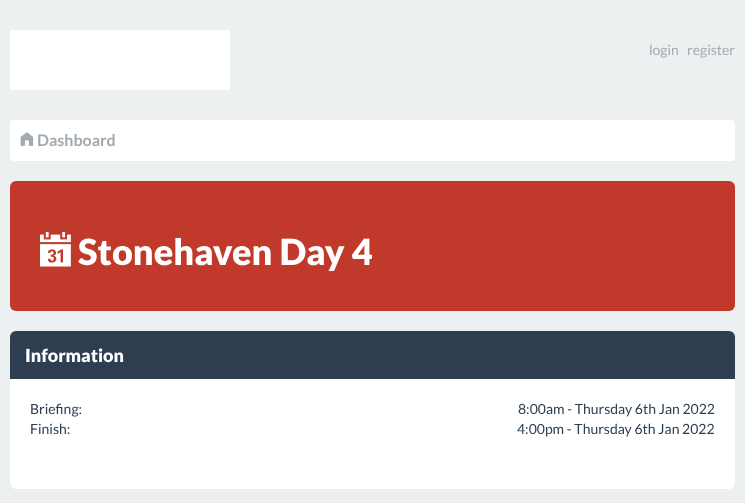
<!DOCTYPE html>
<meta charset="utf-8">
<style>body { margin: 0 } canvas { display: block }</style>
<canvas id="canvas" width="745" height="503"></canvas>
<img id="img1" src="images/1.png" hidden>
<img id="img2" src="images/2.png" hidden>
<script>
window.onload = function () {
    const canvas = document.getElementById('canvas');
    const context = canvas.getContext('2d');
    context.miterLimit = 4;
    context.fontKerning = 'normal';

    context.fillStyle = 'rgb(236, 240, 241)';
    context.fillRect(0, 0, 745, 503);
    context.fillStyle = 'rgb(255, 255, 255)';
    context.fillRect(10, 30, 220, 60);
    context.beginPath();
    context.roundRect(10, 120, 725, 41, 4);
    context.fill();
    context.drawImage(document.getElementById('img1'), 20, 132, 14, 14);
    context.fillStyle = 'rgb(192, 57, 43)';
    context.beginPath();
    context.roundRect(10, 181, 725, 130, 6);
    context.fill();
    context.drawImage(document.getElementById('img2'), 40, 232, 31, 35);
    context.fillStyle = 'rgb(255, 255, 255)';
    context.beginPath();
    context.roundRect(10, 331, 725, 158, 6);
    context.fill();
    context.fillStyle = 'rgb(44, 62, 80)';
    context.beginPath();
    context.roundRect(10, 331, 725, 48, [6, 6, 0, 0]);
    context.fill();
    context.font = '14px Lato';
    context.fillStyle = 'rgb(161, 170, 176)';
    context.fillText('login', 649, 55);
    context.fillText('register', 687, 55);
    context.font = 'bold 16px Lato';
    context.fillText('Dashboard', 37, 146);
    context.font = '900 36px Lato';
    context.fillStyle = 'rgb(255, 255, 255)';
    context.fillText('Stonehaven Day 4', 78, 265);
    context.font = '900 18px Lato';
    context.fillText('Information', 25, 362);
    context.font = '14px Lato';
    context.fillStyle = 'rgb(44, 62, 80)';
    context.fillText('Briefing:', 30, 414);
    context.fillText('8:00am - Thursday 6th Jan 2022', 518, 414);
    context.fillText('Finish:', 30, 434);
    context.fillText('4:00pm - Thursday 6th Jan 2022', 517, 434);
};
</script>
